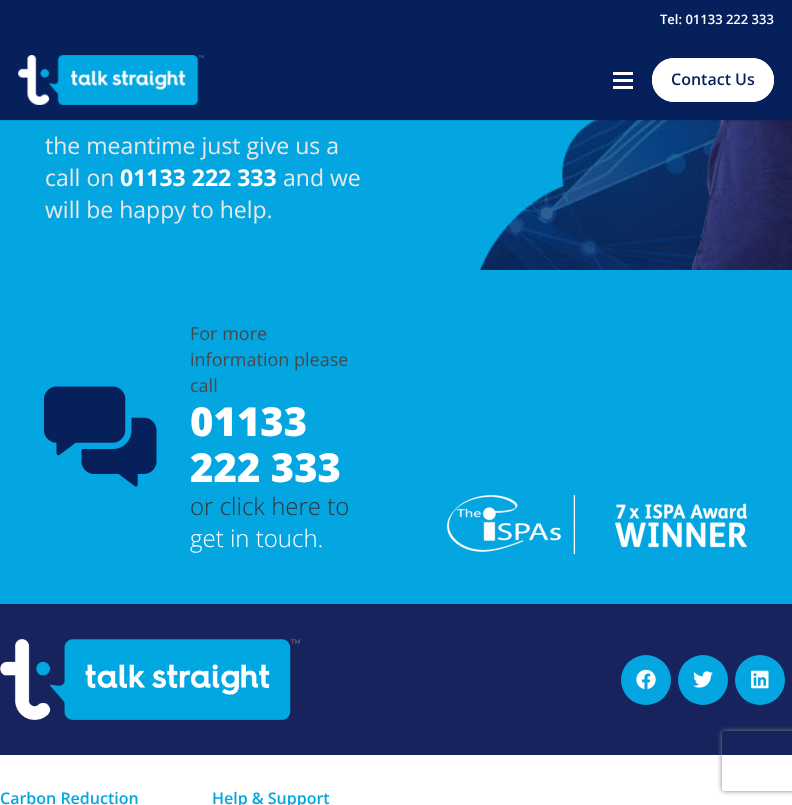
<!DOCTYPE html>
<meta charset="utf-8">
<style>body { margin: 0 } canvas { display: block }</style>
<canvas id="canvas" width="792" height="805"></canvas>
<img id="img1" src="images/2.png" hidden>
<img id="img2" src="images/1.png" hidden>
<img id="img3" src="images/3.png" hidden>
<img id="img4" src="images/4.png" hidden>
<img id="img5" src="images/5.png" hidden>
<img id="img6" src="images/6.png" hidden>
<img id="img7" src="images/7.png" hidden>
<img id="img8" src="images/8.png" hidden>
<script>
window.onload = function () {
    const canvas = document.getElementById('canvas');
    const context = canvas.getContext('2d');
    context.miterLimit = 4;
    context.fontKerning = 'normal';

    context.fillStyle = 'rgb(255, 255, 255)';
    context.fillRect(0, 0, 792, 805);
    context.fillStyle = 'rgb(6, 32, 92)';
    context.fillRect(0, 0, 792, 120);
    context.fillStyle = 'rgb(4, 166, 225)';
    context.fillRect(0, 120, 468, 150);
    context.drawImage(document.getElementById('img1'), 468, 120, 324, 150);
    context.fillStyle = 'rgba(0, 0, 0, 0.08)';
    context.fillRect(0, 120, 792, 1);
    context.drawImage(document.getElementById('img2'), 18, 55, 186, 50);
    context.fillStyle = 'rgb(255, 255, 255)';
    context.fillRect(613, 79, 20, 3);
    context.fillRect(613, 72, 20, 3);
    context.fillRect(613, 86, 20, 3);
    context.beginPath();
    context.roundRect(652, 58, 122, 44, 22);
    context.fill();
    context.beginPath();
    context.roundRect(653, 59, 120, 42, 21);
    context.strokeStyle = 'rgb(255, 255, 255)';
    context.lineWidth = 2;
    context.stroke();
    context.fillStyle = 'rgb(4, 166, 225)';
    context.fillRect(0, 270, 792, 334);
    context.drawImage(document.getElementById('img3'), 44, 386, 113, 101);
    context.drawImage(document.getElementById('img4'), 447, 495, 300, 59);
    context.fillStyle = 'rgb(23, 35, 93)';
    context.fillRect(0, 604, 792, 151);
    context.drawImage(document.getElementById('img5'), 0, 639, 300, 81);
    context.fillStyle = 'rgb(4, 166, 225)';
    context.beginPath();
    context.arc(646, 680, 25, 0, 2 * Math.PI);
    context.fill();
    context.drawImage(document.getElementById('img6'), 636, 669, 20, 20);
    context.beginPath();
    context.arc(703, 680, 25, 0, 2 * Math.PI);
    context.fill();
    context.drawImage(document.getElementById('img7'), 693, 671, 20, 17);
    context.beginPath();
    context.arc(760, 680, 25, 0, 2 * Math.PI);
    context.fill();
    context.drawImage(document.getElementById('img8'), 751, 670, 18, 19);
    context.save();
    context.beginPath();
    context.moveTo(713, 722);
    context.lineTo(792, 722);
    context.lineTo(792, 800);
    context.lineTo(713, 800);
    context.closePath();
    context.moveTo(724, 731);
    context.lineTo(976, 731);
    context.bezierCurveTo(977, 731, 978, 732, 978, 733);
    context.lineTo(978, 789);
    context.bezierCurveTo(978, 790, 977, 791, 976, 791);
    context.lineTo(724, 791);
    context.bezierCurveTo(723, 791, 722, 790, 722, 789);
    context.lineTo(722, 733);
    context.bezierCurveTo(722, 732, 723, 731, 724, 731);
    context.closePath();
    context.clip('evenodd');
    context.fillStyle = 'rgb(128, 128, 128)';
    context.filter = 'blur(2.5px)';
    context.beginPath();
    context.roundRect(722, 731, 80, 60, 2);
    context.fill();
    context.filter = 'none';
    context.restore();
    context.font = '600 13px Open Sans';
    context.fillStyle = 'rgb(255, 255, 255)';
    context.fillText('Tel: 01133 222 333', 660, 24);
    context.font = '600 16px Open Sans';
    context.fillStyle = 'rgb(6, 32, 92)';
    context.fillText('Contact Us', 671, 85);
    context.font = '23px Open Sans';
    context.fillStyle = 'rgb(232, 232, 232)';
    context.fillText('the meantime just give us a', 45, 154);
    context.fillText('call on', 45, 186);
    context.font = 'bold 23px Open Sans';
    context.fillStyle = 'rgb(255, 255, 255)';
    context.fillText('01133 222 333', 120, 186);
    context.font = '23px Open Sans';
    context.fillStyle = 'rgb(232, 232, 232)';
    context.fillText('and we', 283, 186);
    context.fillText('will be happy to help.', 45, 218);
    context.font = '18px Open Sans';
    context.fillStyle = 'rgb(72, 72, 72)';
    context.fillText('For more', 190, 340);
    context.fillText('information please', 190, 366);
    context.fillText('call', 190, 392);
    context.font = '800 40px Open Sans';
    context.fillStyle = 'rgb(255, 255, 255)';
    context.fillText('01133', 190, 436);
    context.fillText('222 333', 190, 482);
    context.font = '300 24px Open Sans';
    context.fillStyle = 'rgb(51, 51, 51)';
    context.fillText('or click here to', 190, 515);
    context.fillStyle = 'rgb(255, 255, 255)';
    context.fillText('get in touch.', 190, 547);
    context.font = '600 16px Open Sans';
    context.fillStyle = 'rgb(4, 166, 225)';
    context.fillText('Carbon Reduction', 0, 804);
    context.fillText('Help & Support', 212, 804);
};
</script>
